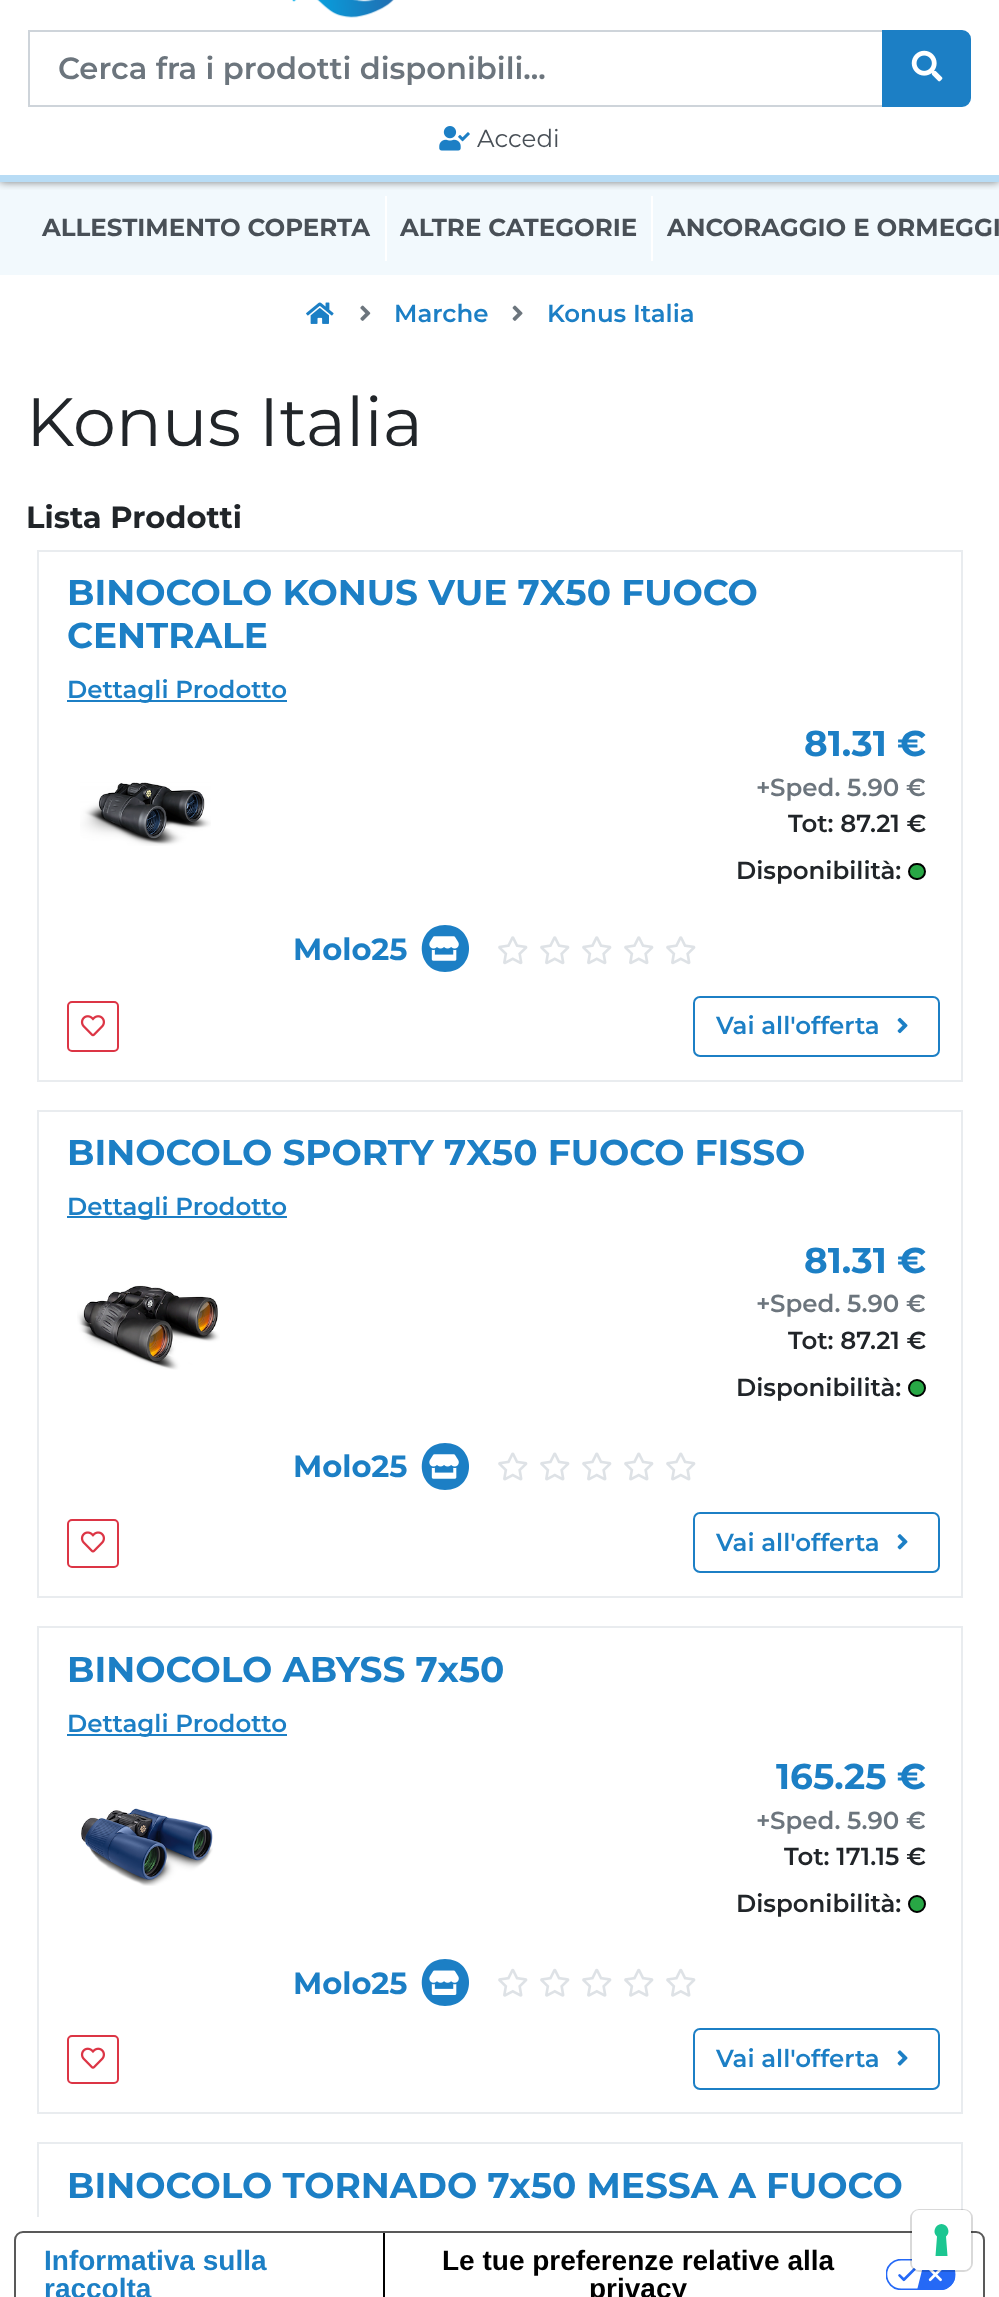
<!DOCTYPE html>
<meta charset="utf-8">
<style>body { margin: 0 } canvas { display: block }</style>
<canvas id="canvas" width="999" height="2297"></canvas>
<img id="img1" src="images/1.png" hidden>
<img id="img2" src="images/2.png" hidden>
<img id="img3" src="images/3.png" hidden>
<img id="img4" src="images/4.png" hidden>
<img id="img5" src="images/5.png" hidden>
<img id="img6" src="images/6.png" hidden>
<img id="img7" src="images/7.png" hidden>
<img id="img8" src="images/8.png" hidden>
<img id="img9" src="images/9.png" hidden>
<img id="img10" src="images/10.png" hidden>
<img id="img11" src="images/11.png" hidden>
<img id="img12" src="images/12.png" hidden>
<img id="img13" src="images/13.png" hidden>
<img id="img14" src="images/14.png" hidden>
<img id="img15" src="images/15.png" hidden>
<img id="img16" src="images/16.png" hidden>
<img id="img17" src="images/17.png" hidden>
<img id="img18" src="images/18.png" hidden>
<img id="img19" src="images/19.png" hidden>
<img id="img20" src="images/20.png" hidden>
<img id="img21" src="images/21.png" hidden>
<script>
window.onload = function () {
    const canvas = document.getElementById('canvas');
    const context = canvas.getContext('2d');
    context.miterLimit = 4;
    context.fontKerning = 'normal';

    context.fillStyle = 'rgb(255, 255, 255)';
    context.fillRect(0, 0, 999, 2297);
    context.fillStyle = 'rgb(242, 249, 253)';
    context.fillRect(0, 182, 999, 93);
    context.fillStyle = 'rgb(255, 255, 255)';
    context.fillRect(385, 196, 2, 65);
    context.fillRect(651, 196, 2, 65);
    context.save();
    context.beginPath();
    context.rect(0, 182, 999, 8);
    context.clip();
    context.fillStyle = 'rgba(0, 0, 0, 0.5)';
    context.filter = 'blur(4.5px)';
    context.beginPath();
    context.rect(0, -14, 999, 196);
    context.fill();
    context.filter = 'none';
    context.restore();
    context.fillStyle = 'rgb(184, 220, 245)';
    context.fillRect(0, 175, 999, 7);
    context.drawImage(document.getElementById('img1'), 292, 0, 102, 18);
    context.strokeStyle = 'rgb(206, 212, 218)';
    context.lineWidth = 2;
    context.strokeRect(29, 31, 854, 75);
    context.fillStyle = 'rgb(28, 127, 197)';
    context.beginPath();
    context.roundRect(883, 31, 87, 75, [0, 8, 8, 0]);
    context.fill();
    context.strokeStyle = 'rgb(28, 127, 197)';
    context.stroke();
    context.drawImage(document.getElementById('img2'), 911, 50, 32, 32);
    context.drawImage(document.getElementById('img3'), 439, 126, 31, 25);
    context.drawImage(document.getElementById('img4'), 306, 302, 28, 22);
    context.drawImage(document.getElementById('img5'), 360, 305, 11, 16);
    context.drawImage(document.getElementById('img6'), 512, 305, 11, 16);
    context.strokeStyle = 'rgb(233, 236, 239)';
    context.strokeRect(38, 551, 924, 530);
    context.fillRect(67, 700, 220, 2);
    context.drawImage(document.getElementById('img7'), 80, 782, 131, 64);
    context.fillStyle = 'rgb(40, 167, 69)';
    context.beginPath();
    context.roundRect(909, 864, 16, 15, 7.5);
    context.fill();
    context.strokeStyle = 'rgb(0, 0, 0)';
    context.stroke();
    context.fillStyle = 'rgb(28, 127, 197)';
    context.beginPath();
    context.moveTo(445, 925);
    context.bezierCurveTo(414, 925, 414, 972, 445, 972);
    context.bezierCurveTo(477, 972, 477, 925, 445, 925);
    context.closePath();
    context.fill();
    context.drawImage(document.getElementById('img8'), 429, 936, 30, 25);
    context.drawImage(document.getElementById('img9'), 498, 936, 30, 29);
    context.drawImage(document.getElementById('img9'), 540, 936, 30, 29);
    context.drawImage(document.getElementById('img9'), 582, 936, 30, 29);
    context.drawImage(document.getElementById('img9'), 624, 936, 30, 29);
    context.drawImage(document.getElementById('img9'), 666, 936, 30, 29);
    context.beginPath();
    context.roundRect(68, 1002, 50, 49, 4);
    context.strokeStyle = 'rgb(220, 53, 69)';
    context.stroke();
    context.drawImage(document.getElementById('img10'), 80, 1015, 25, 22);
    context.beginPath();
    context.roundRect(694, 997, 245, 59, 6);
    context.strokeStyle = 'rgb(28, 127, 197)';
    context.stroke();
    context.drawImage(document.getElementById('img11'), 897, 1017, 11, 17);
    context.strokeStyle = 'rgb(233, 236, 239)';
    context.strokeRect(38, 1111, 924, 486);
    context.fillRect(67, 1216, 220, 2);
    context.drawImage(document.getElementById('img12'), 77, 1285, 143, 85);
    context.fillStyle = 'rgb(40, 167, 69)';
    context.beginPath();
    context.arc(917, 1388, 8, 0, 2 * Math.PI);
    context.fill();
    context.strokeStyle = 'rgb(0, 0, 0)';
    context.stroke();
    context.fillStyle = 'rgb(28, 127, 197)';
    context.beginPath();
    context.moveTo(445, 1443);
    context.bezierCurveTo(414, 1443, 414, 1490, 445, 1490);
    context.bezierCurveTo(477, 1490, 477, 1443, 445, 1443);
    context.closePath();
    context.fill();
    context.drawImage(document.getElementById('img8'), 429, 1454, 30, 25);
    context.drawImage(document.getElementById('img13'), 498, 1452, 30, 29);
    context.drawImage(document.getElementById('img13'), 540, 1452, 30, 29);
    context.drawImage(document.getElementById('img13'), 582, 1452, 30, 29);
    context.drawImage(document.getElementById('img13'), 624, 1452, 30, 29);
    context.drawImage(document.getElementById('img13'), 666, 1452, 30, 29);
    context.beginPath();
    context.roundRect(68, 1520, 50, 47, 4);
    context.strokeStyle = 'rgb(220, 53, 69)';
    context.stroke();
    context.drawImage(document.getElementById('img14'), 80, 1531, 25, 22);
    context.beginPath();
    context.roundRect(694, 1513, 245, 59, 6);
    context.strokeStyle = 'rgb(28, 127, 197)';
    context.stroke();
    context.drawImage(document.getElementById('img15'), 897, 1534, 11, 16);
    context.strokeStyle = 'rgb(233, 236, 239)';
    context.strokeRect(38, 1627, 924, 486);
    context.fillRect(67, 1734, 220, 2);
    context.drawImage(document.getElementById('img16'), 81, 1808, 132, 78);
    context.fillStyle = 'rgb(40, 167, 69)';
    context.beginPath();
    context.arc(917, 1904, 8, 0, 2 * Math.PI);
    context.fill();
    context.strokeStyle = 'rgb(0, 0, 0)';
    context.stroke();
    context.fillStyle = 'rgb(28, 127, 197)';
    context.beginPath();
    context.moveTo(445, 1959);
    context.bezierCurveTo(414, 1959, 414, 2006, 445, 2006);
    context.bezierCurveTo(477, 2006, 477, 1959, 445, 1959);
    context.closePath();
    context.fill();
    context.drawImage(document.getElementById('img17'), 429, 1970, 30, 25);
    context.drawImage(document.getElementById('img18'), 498, 1968, 30, 29);
    context.drawImage(document.getElementById('img18'), 540, 1968, 30, 29);
    context.drawImage(document.getElementById('img18'), 582, 1968, 30, 29);
    context.drawImage(document.getElementById('img18'), 624, 1968, 30, 29);
    context.drawImage(document.getElementById('img18'), 666, 1968, 30, 29);
    context.beginPath();
    context.roundRect(68, 2036, 50, 47, 4);
    context.strokeStyle = 'rgb(220, 53, 69)';
    context.stroke();
    context.drawImage(document.getElementById('img19'), 80, 2047, 25, 22);
    context.beginPath();
    context.roundRect(694, 2029, 245, 60, 6);
    context.strokeStyle = 'rgb(28, 127, 197)';
    context.stroke();
    context.drawImage(document.getElementById('img20'), 897, 2050, 11, 16);
    context.beginPath();
    context.roundRect(15, 2232, 969, 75, 8);
    context.strokeStyle = 'rgb(89, 89, 89)';
    context.stroke();
    context.fillStyle = 'rgb(0, 0, 0)';
    context.fillRect(383, 2233, 2, 64);
    context.drawImage(document.getElementById('img21'), 886, 2259, 70, 31);
    context.save();
    context.beginPath();
    context.rect(0, 0, 999, 2217);
    context.clip();
    context.strokeStyle = 'rgb(233, 236, 239)';
    context.strokeRect(38, 2143, 924, 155);
    context.restore();
    context.beginPath();
    context.roundRect(911, 2210, 61, 61, 8);
    context.strokeStyle = 'rgba(0, 0, 0, 0.15)';
    context.stroke();
    context.fillStyle = 'rgb(255, 255, 255)';
    context.beginPath();
    context.roundRect(912, 2210, 59, 60, 7);
    context.fill();
    context.fillStyle = 'rgb(28, 198, 145)';
    context.beginPath();
    context.moveTo(941.5, 2224);
    context.bezierCurveTo(948, 2224.5, 951, 2232.5, 946, 2236.5);
    context.lineTo(947.5, 2256);
    context.lineTo(935.5, 2256);
    context.lineTo(937, 2236.5);
    context.bezierCurveTo(932, 2232.5, 935, 2224.5, 941.5, 2224);
    context.closePath();
    context.fill('evenodd');
    context.font = '600 30.6px Montserrat';
    context.fillStyle = 'rgb(108, 117, 125)';
    context.fillText('Cerca fra i prodotti disponibili...', 58, 79);
    context.font = '24.5px Montserrat';
    context.fillStyle = 'rgb(73, 80, 87)';
    context.fillText('Accedi', 477, 147);
    context.font = 'bold 24.5px Montserrat';
    context.fillText('ALLESTIMENTO COPERTA', 42, 236);
    context.fillText('ALTRE CATEGORIE', 400, 236);
    context.fillText('ANCORAGGIO E ORMEGGI', 667, 236);
    context.font = '600 24.5px Montserrat';
    context.fillStyle = 'rgb(28, 127, 197)';
    context.fillText('Marche', 394, 322);
    context.fillText('Konus Italia', 547, 322);
    context.font = '68.25px Montserrat';
    context.fillStyle = 'rgb(33, 37, 41)';
    context.fillText('Konus Italia', 26, 446);
    context.font = 'bold 30.6px Montserrat';
    context.fillText('Lista Prodotti', 26, 528);
    context.font = 'bold 35.9px Montserrat';
    context.fillStyle = 'rgb(28, 127, 197)';
    context.fillText('BINOCOLO KONUS VUE 7X50 FUOCO', 67, 605);
    context.fillText('CENTRALE', 67, 648);
    context.font = '600 24.5px Montserrat';
    context.fillText('Dettagli Prodotto', 67, 698);
    context.font = 'bold 35.9px Montserrat';
    context.fillText('81.31 €', 804, 756);
    context.font = '600 24.5px Montserrat';
    context.fillStyle = 'rgb(108, 117, 125)';
    context.fillText('+Sped. 5.90 €', 756, 796);
    context.fillStyle = 'rgb(33, 37, 41)';
    context.fillText('Tot: 87.21 €', 788, 832);
    context.fillText('Disponibilità:', 736, 879);
    context.font = 'bold 30.6px Montserrat';
    context.fillStyle = 'rgb(28, 127, 197)';
    context.fillText('Molo25', 293, 960);
    context.font = '600 24.5px Montserrat';
    context.fillText('Vai all\'offerta', 716, 1034);
    context.font = 'bold 35.9px Montserrat';
    context.fillText('BINOCOLO SPORTY 7X50 FUOCO FISSO', 67, 1165);
    context.font = '600 24.5px Montserrat';
    context.fillText('Dettagli Prodotto', 67, 1215);
    context.font = 'bold 35.9px Montserrat';
    context.fillText('81.31 €', 804, 1273);
    context.font = '600 24.5px Montserrat';
    context.fillStyle = 'rgb(108, 117, 125)';
    context.fillText('+Sped. 5.90 €', 756, 1312);
    context.fillStyle = 'rgb(33, 37, 41)';
    context.fillText('Tot: 87.21 €', 788, 1349);
    context.fillText('Disponibilità:', 736, 1396);
    context.font = 'bold 30.6px Montserrat';
    context.fillStyle = 'rgb(28, 127, 197)';
    context.fillText('Molo25', 293, 1477);
    context.font = '600 24.5px Montserrat';
    context.fillText('Vai all\'offerta', 716, 1551);
    context.font = 'bold 35.9px Montserrat';
    context.fillText('BINOCOLO ABYSS 7x50', 67, 1682);
    context.font = '600 24.5px Montserrat';
    context.fillText('Dettagli Prodotto', 67, 1732);
    context.font = 'bold 35.9px Montserrat';
    context.fillText('165.25 €', 776, 1789);
    context.font = '600 24.5px Montserrat';
    context.fillStyle = 'rgb(108, 117, 125)';
    context.fillText('+Sped. 5.90 €', 756, 1829);
    context.fillStyle = 'rgb(33, 37, 41)';
    context.fillText('Tot: 171.15 €', 784, 1865);
    context.fillText('Disponibilità:', 736, 1912);
    context.font = 'bold 30.6px Montserrat';
    context.fillStyle = 'rgb(28, 127, 197)';
    context.fillText('Molo25', 293, 1994);
    context.font = '600 24.5px Montserrat';
    context.fillText('Vai all\'offerta', 716, 2067);
    context.font = 'bold 35.9px Montserrat';
    context.fillText('BINOCOLO TORNADO 7x50 MESSA A FUOCO', 67, 2198);
    context.font = 'bold 28px Liberation Sans';
    context.fillText('Informativa sulla', 44, 2270);
    context.fillText('raccolta', 44, 2298);
    context.fillStyle = 'rgb(0, 0, 0)';
    context.fillText('Le tue preferenze relative alla', 442, 2270);
    context.fillText('privacy', 589, 2298);
};
</script>
